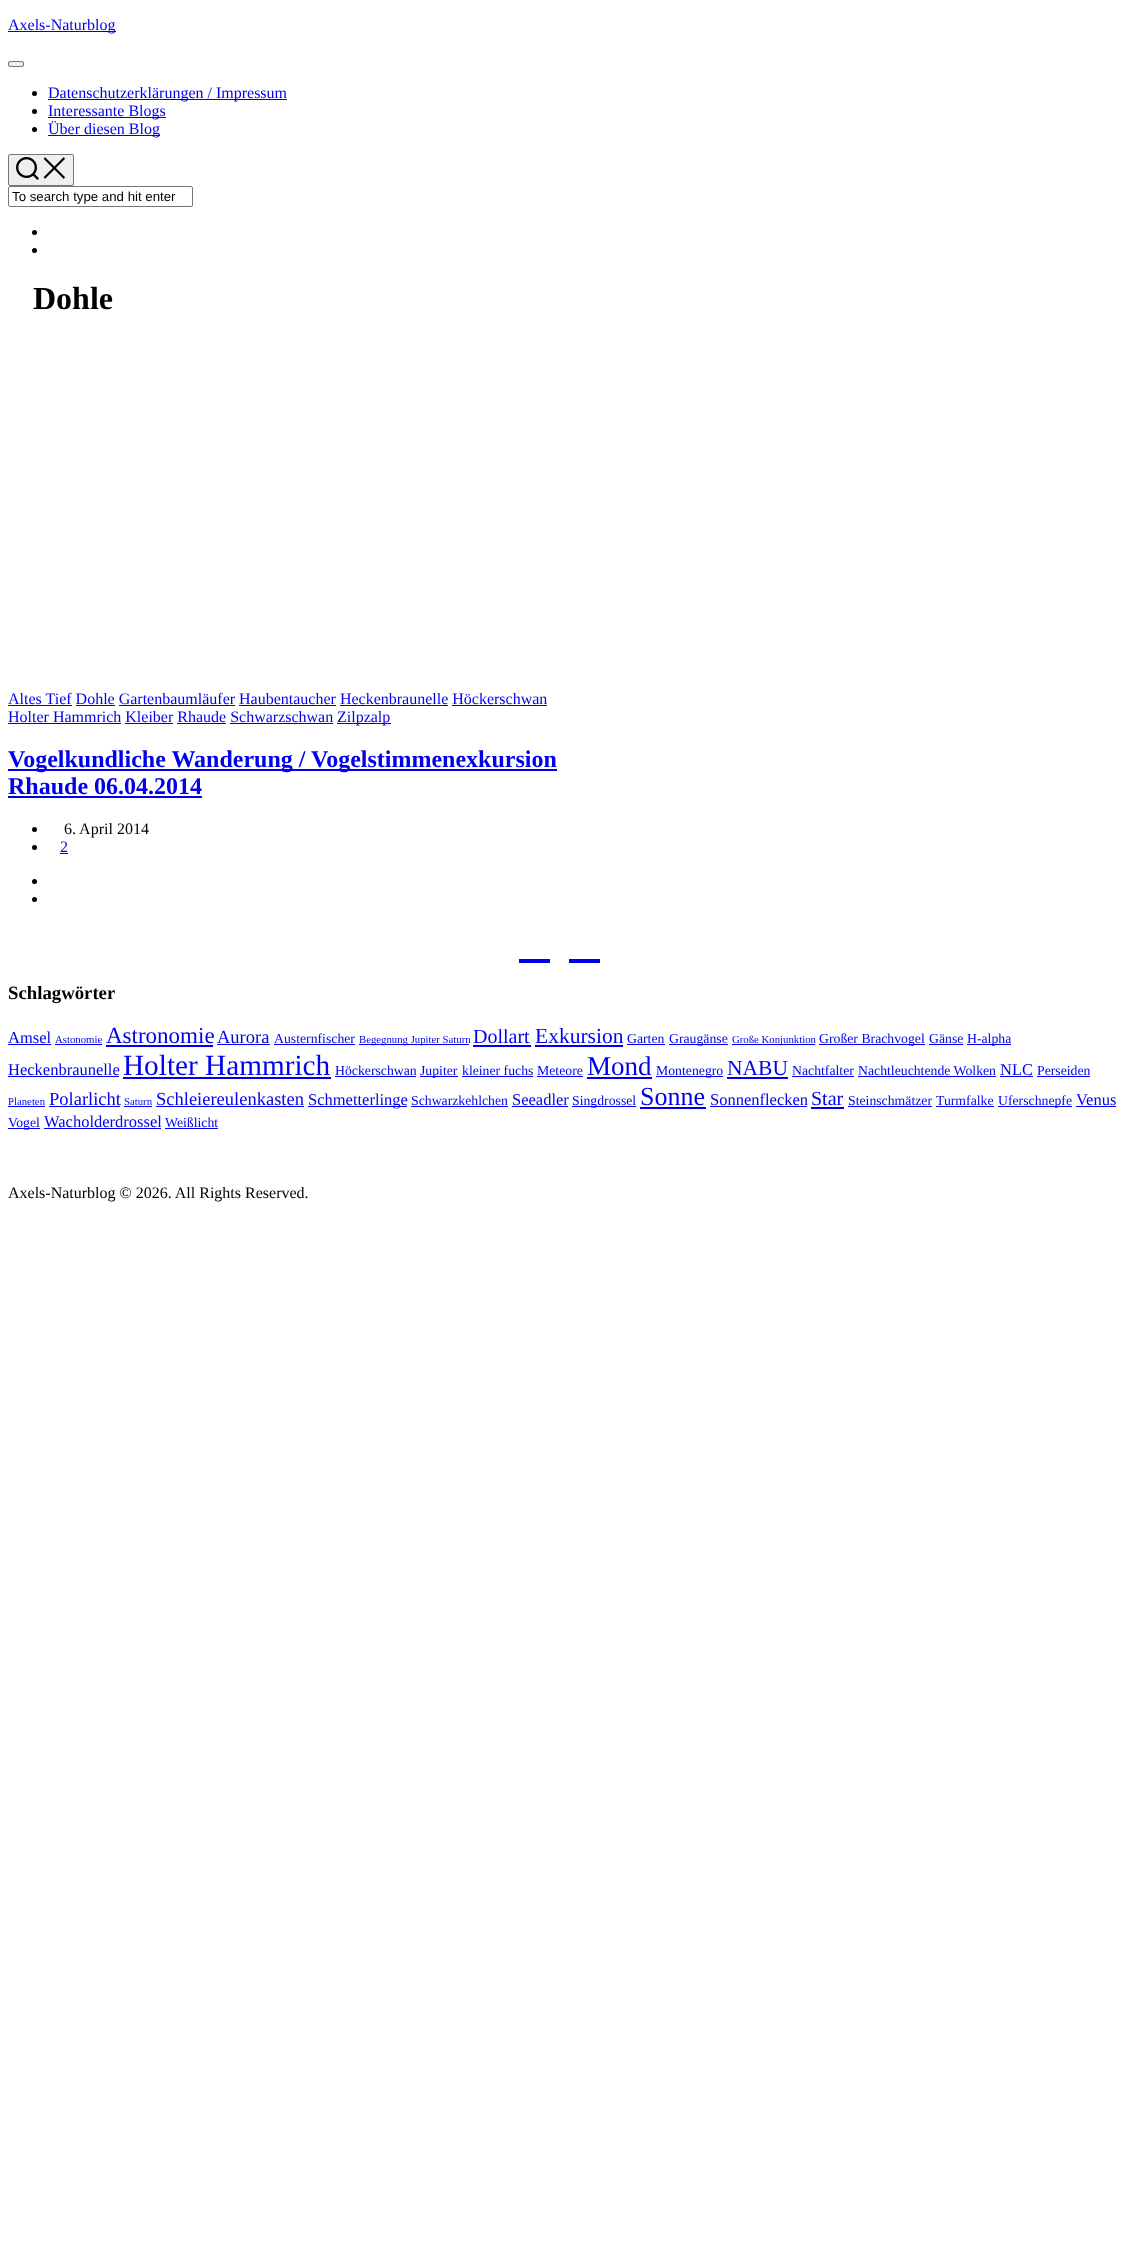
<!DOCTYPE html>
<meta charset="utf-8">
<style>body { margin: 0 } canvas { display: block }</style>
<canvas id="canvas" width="1134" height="2259"></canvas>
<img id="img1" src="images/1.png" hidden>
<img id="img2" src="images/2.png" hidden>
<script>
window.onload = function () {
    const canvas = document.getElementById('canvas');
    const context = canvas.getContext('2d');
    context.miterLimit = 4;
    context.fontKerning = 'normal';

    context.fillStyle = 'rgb(255, 255, 255)';
    context.fillRect(0, 0, 1134, 2259);
    context.fillStyle = 'rgb(0, 0, 238)';
    context.fillRect(8, 31, 108, 1);
    context.fillStyle = 'rgb(239, 239, 239)';
    context.beginPath();
    context.roundRect(8.5, 61.5, 15, 5, 1.5);
    context.fill();
    context.strokeStyle = 'rgb(118, 118, 118)';
    context.stroke();
    context.fillStyle = 'rgb(0, 0, 0)';
    context.beginPath();
    context.arc(34.5, 93.5, 2.5, 0, 2 * Math.PI);
    context.fill();
    context.fillStyle = 'rgb(0, 0, 238)';
    context.fillRect(48, 99, 239, 1);
    context.fillStyle = 'rgb(0, 0, 0)';
    context.beginPath();
    context.arc(34.5, 111.5, 2.5, 0, 2 * Math.PI);
    context.fill();
    context.fillStyle = 'rgb(0, 0, 238)';
    context.fillRect(48, 117, 118, 1);
    context.fillStyle = 'rgb(0, 0, 0)';
    context.beginPath();
    context.arc(34.5, 129.5, 2.5, 0, 2 * Math.PI);
    context.fill();
    context.fillStyle = 'rgb(0, 0, 238)';
    context.fillRect(48, 135, 112, 1);
    context.fillStyle = 'rgb(239, 239, 239)';
    context.beginPath();
    context.roundRect(8.5, 154.5, 65, 31, 1.5);
    context.fill();
    context.stroke();
    context.drawImage(document.getElementById('img1'), 16, 157, 23, 23);
    context.drawImage(document.getElementById('img2'), 43, 157, 22, 22);
    context.beginPath();
    context.roundRect(8.5, 186.5, 184, 20, 1.5);
    context.stroke();
    context.fillStyle = 'rgb(0, 0, 0)';
    context.beginPath();
    context.arc(34.5, 232.5, 2.5, 0, 2 * Math.PI);
    context.fill();
    context.beginPath();
    context.arc(34.5, 250.5, 2.5, 0, 2 * Math.PI);
    context.fill();
    context.fillStyle = 'rgb(0, 0, 238)';
    context.fillRect(8, 705, 64, 1);
    context.fillRect(76, 705, 39, 1);
    context.fillRect(119, 705, 116, 1);
    context.fillRect(239, 705, 97, 1);
    context.fillRect(340, 705, 108, 1);
    context.fillRect(452, 705, 95, 1);
    context.fillRect(8, 723, 113, 1);
    context.fillRect(337, 723, 54, 1);
    context.fillRect(125, 723, 48, 1);
    context.fillRect(177, 723, 49, 1);
    context.fillRect(230, 723, 103, 1);
    context.fillRect(8, 769, 549, 2);
    context.fillRect(8, 796, 194, 2);
    context.fillStyle = 'rgb(0, 0, 0)';
    context.beginPath();
    context.arc(34.5, 829.5, 2.5, 0, 2 * Math.PI);
    context.fill();
    context.beginPath();
    context.arc(34.5, 847.5, 2.5, 0, 2 * Math.PI);
    context.fill();
    context.fillStyle = 'rgb(0, 0, 238)';
    context.fillRect(60, 853, 8, 1);
    context.fillStyle = 'rgb(0, 0, 0)';
    context.beginPath();
    context.arc(34.5, 881.5, 2.5, 0, 2 * Math.PI);
    context.fill();
    context.beginPath();
    context.arc(34.5, 899.5, 2.5, 0, 2 * Math.PI);
    context.fill();
    context.fillStyle = 'rgb(0, 0, 238)';
    context.fillRect(519, 959, 31, 4);
    context.fillRect(569, 959, 31, 4);
    context.fillRect(8, 1044, 43, 1);
    context.fillRect(55, 1044, 47, 1);
    context.fillRect(106, 1045, 107, 2);
    context.fillRect(217, 1044, 53, 1);
    context.fillRect(274, 1044, 81, 1);
    context.fillRect(359, 1044, 110, 1);
    context.fillRect(473, 1045, 58, 2);
    context.fillRect(535, 1045, 88, 2);
    context.fillRect(627, 1044, 38, 1);
    context.fillRect(669, 1044, 59, 1);
    context.fillRect(732, 1044, 83, 1);
    context.fillRect(819, 1044, 106, 1);
    context.fillRect(929, 1044, 34, 1);
    context.fillRect(967, 1044, 44, 1);
    context.fillRect(8, 1076, 111, 1);
    context.fillRect(123, 1077, 208, 2);
    context.fillRect(335, 1076, 81, 1);
    context.fillRect(420, 1076, 38, 1);
    context.fillRect(462, 1076, 71, 1);
    context.fillRect(537, 1076, 46, 1);
    context.fillRect(587, 1077, 65, 2);
    context.fillRect(656, 1076, 67, 1);
    context.fillRect(727, 1077, 61, 2);
    context.fillRect(792, 1076, 62, 1);
    context.fillRect(858, 1076, 138, 1);
    context.fillRect(1000, 1076, 33, 1);
    context.fillRect(1037, 1076, 53, 1);
    context.fillRect(8, 1106, 37, 1);
    context.fillRect(49, 1106, 71, 1);
    context.fillRect(124, 1106, 28, 1);
    context.fillRect(156, 1106, 148, 1);
    context.fillRect(308, 1106, 99, 1);
    context.fillRect(411, 1106, 97, 1);
    context.fillRect(512, 1106, 56, 1);
    context.fillRect(572, 1106, 64, 1);
    context.fillRect(640, 1107, 66, 2);
    context.fillRect(710, 1106, 97, 1);
    context.fillRect(811, 1107, 33, 2);
    context.fillRect(848, 1106, 84, 1);
    context.fillRect(936, 1106, 58, 1);
    context.fillRect(998, 1106, 74, 1);
    context.fillRect(1076, 1106, 40, 1);
    context.fillRect(8, 1128, 32, 1);
    context.fillRect(44, 1128, 117, 1);
    context.fillRect(165, 1128, 53, 1);
    context.font = '16px Liberation Serif';
    context.fillText('Axels-Naturblog', 8, 30);
    context.fillText('Datenschutzerklärungen / Impressum', 48, 98);
    context.fillText('Interessante Blogs', 48, 116);
    context.fillText('Über diesen Blog', 48, 134);
    context.font = '13.25px Liberation Sans';
    context.fillStyle = 'rgb(0, 0, 0)';
    context.fillText('To search type and hit enter', 12, 201);
    context.font = 'bold 32px Liberation Serif';
    context.fillText('Dohle', 33, 309);
    context.font = '16px Liberation Serif';
    context.fillStyle = 'rgb(0, 0, 238)';
    context.fillText('Altes Tief Dohle Gartenbaumläufer Haubentaucher Heckenbraunelle Höckerschwan', 8, 704);
    context.fillText('Holter Hammrich Kleiber Rhaude Schwarzschwan', 8, 722);
    context.fillText('Zilpzalp', 337, 722);
    context.font = 'bold 24px Liberation Serif';
    context.fillText('Vogelkundliche Wanderung / Vogelstimmenexkursion', 8, 767);
    context.fillText('Rhaude 06.04.2014', 8, 794);
    context.font = '16px Liberation Serif';
    context.fillStyle = 'rgb(0, 0, 0)';
    context.fillText('6. April 2014', 64, 834);
    context.fillStyle = 'rgb(0, 0, 238)';
    context.fillText('2', 60, 852);
    context.font = 'bold 18.75px Liberation Serif';
    context.fillStyle = 'rgb(0, 0, 0)';
    context.fillText('Schlagwörter', 8, 999);
    context.font = '16.5px Liberation Serif';
    context.fillStyle = 'rgb(0, 0, 238)';
    context.fillText('Amsel', 8, 1043);
    context.font = '10.75px Liberation Serif';
    context.fillText('Astonomie', 55, 1043);
    context.font = '23px Liberation Serif';
    context.fillText('Astronomie', 106, 1043);
    context.font = '18.5px Liberation Serif';
    context.fillText('Aurora', 217, 1043);
    context.font = '13.75px Liberation Serif';
    context.fillText('Austernfischer', 274, 1043);
    context.font = '10.75px Liberation Serif';
    context.fillText('Begegnung Jupiter Saturn', 359, 1043);
    context.font = '20px Liberation Serif';
    context.fillText('Dollart', 473, 1043);
    context.font = '21.5px Liberation Serif';
    context.fillText('Exkursion', 535, 1043);
    context.font = '13.75px Liberation Serif';
    context.fillText('Garten', 627, 1043);
    context.fillText('Graugänse', 669, 1043);
    context.font = '10.75px Liberation Serif';
    context.fillText('Große Konjunktion', 732, 1043);
    context.font = '13.75px Liberation Serif';
    context.fillText('Großer Brachvogel', 819, 1043);
    context.fillText('Gänse', 929, 1043);
    context.fillText('H-alpha', 967, 1043);
    context.font = '16.5px Liberation Serif';
    context.fillText('Heckenbraunelle', 8, 1075);
    context.font = '29.25px Liberation Serif';
    context.fillText('Holter Hammrich', 123, 1075);
    context.font = '13.75px Liberation Serif';
    context.fillText('Höckerschwan', 335, 1075);
    context.fillText('Jupiter', 420, 1075);
    context.fillText('kleiner fuchs', 462, 1075);
    context.fillText('Meteore', 537, 1075);
    context.font = '27px Liberation Serif';
    context.fillText('Mond', 587, 1075);
    context.font = '13.75px Liberation Serif';
    context.fillText('Montenegro', 656, 1075);
    context.font = '21.5px Liberation Serif';
    context.fillText('NABU', 727, 1075);
    context.font = '13.75px Liberation Serif';
    context.fillText('Nachtfalter', 792, 1075);
    context.fillText('Nachtleuchtende Wolken', 858, 1075);
    context.font = '16.5px Liberation Serif';
    context.fillText('NLC', 1000, 1075);
    context.font = '13.75px Liberation Serif';
    context.fillText('Perseiden', 1037, 1075);
    context.font = '10.75px Liberation Serif';
    context.fillText('Planeten', 8, 1105);
    context.font = '18.5px Liberation Serif';
    context.fillText('Polarlicht', 49, 1105);
    context.font = '10.75px Liberation Serif';
    context.fillText('Saturn', 124, 1105);
    context.font = '18.5px Liberation Serif';
    context.fillText('Schleiereulenkasten', 156, 1105);
    context.font = '16.5px Liberation Serif';
    context.fillText('Schmetterlinge', 308, 1105);
    context.font = '13.75px Liberation Serif';
    context.fillText('Schwarzkehlchen', 411, 1105);
    context.font = '16.5px Liberation Serif';
    context.fillText('Seeadler', 512, 1105);
    context.font = '13.75px Liberation Serif';
    context.fillText('Singdrossel', 572, 1105);
    context.font = '26px Liberation Serif';
    context.fillText('Sonne', 640, 1105);
    context.font = '16.5px Liberation Serif';
    context.fillText('Sonnenflecken', 710, 1105);
    context.font = '20px Liberation Serif';
    context.fillText('Star', 811, 1105);
    context.font = '13.75px Liberation Serif';
    context.fillText('Steinschmätzer', 848, 1105);
    context.fillText('Turmfalke', 936, 1105);
    context.fillText('Uferschnepfe', 998, 1105);
    context.font = '16.5px Liberation Serif';
    context.fillText('Venus', 1076, 1105);
    context.font = '13.75px Liberation Serif';
    context.fillText('Vogel', 8, 1127);
    context.font = '16.5px Liberation Serif';
    context.fillText('Wacholderdrossel', 44, 1127);
    context.font = '13.75px Liberation Serif';
    context.fillText('Weißlicht', 165, 1127);
    context.font = '16px Liberation Serif';
    context.fillStyle = 'rgb(0, 0, 0)';
    context.fillText('Axels-Naturblog © 2026. All Rights Reserved.', 8, 1198);
};
</script>
